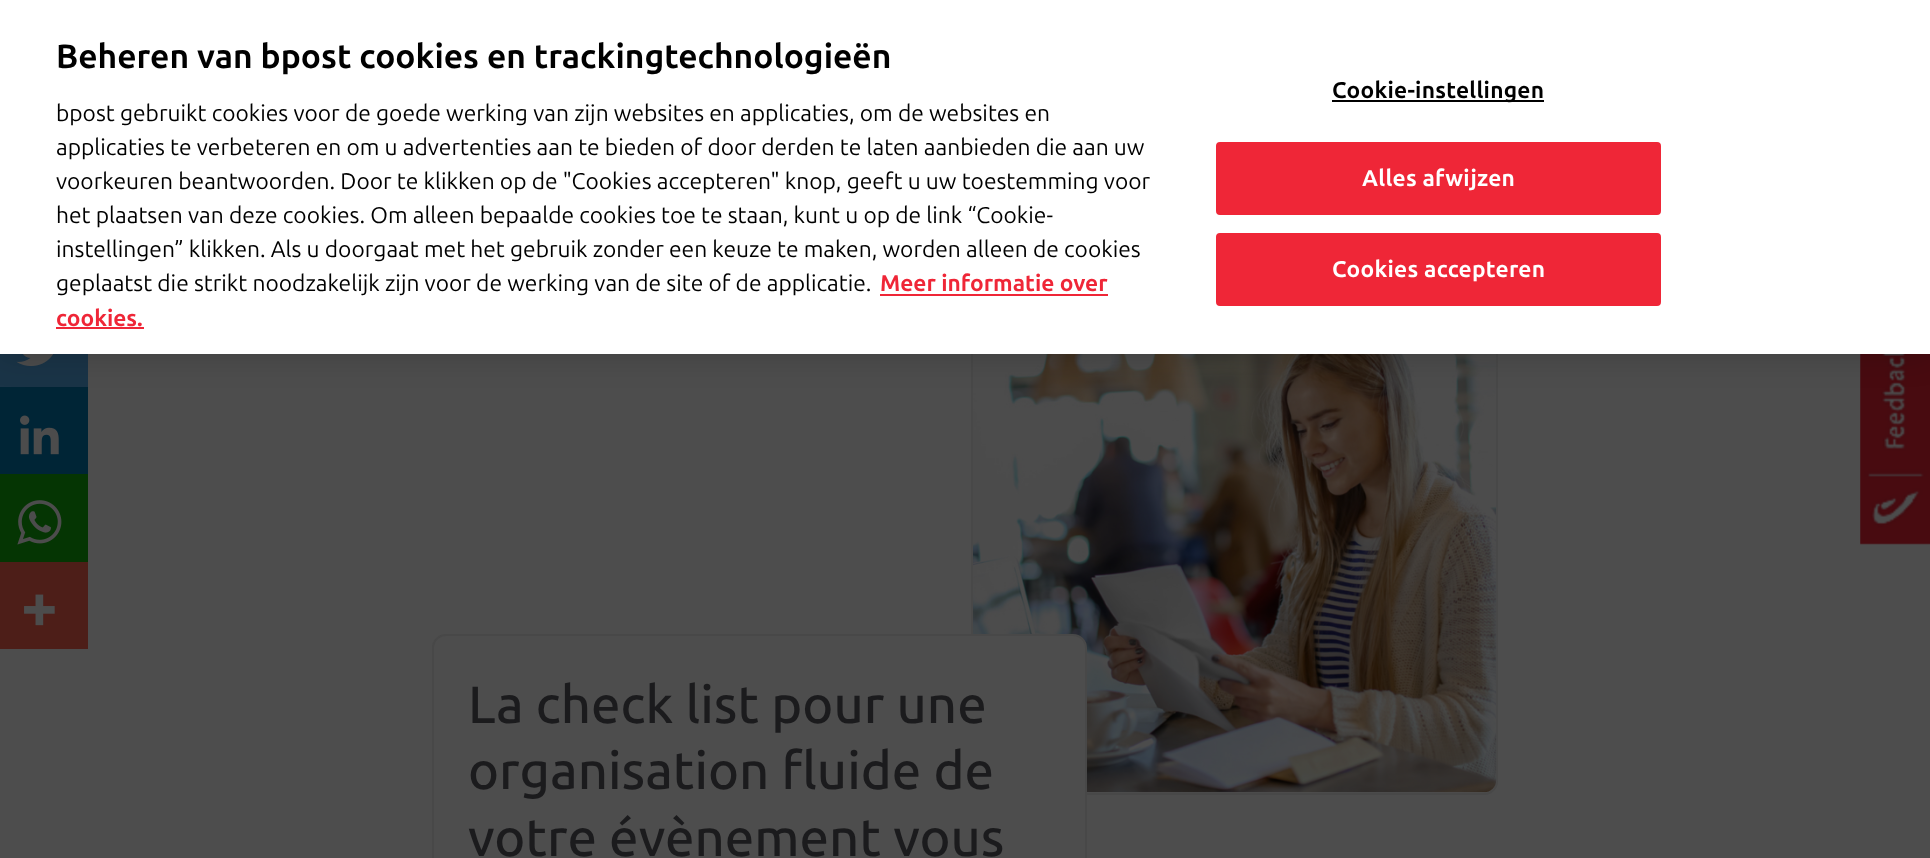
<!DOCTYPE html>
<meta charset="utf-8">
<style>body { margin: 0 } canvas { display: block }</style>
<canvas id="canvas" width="1930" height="858"></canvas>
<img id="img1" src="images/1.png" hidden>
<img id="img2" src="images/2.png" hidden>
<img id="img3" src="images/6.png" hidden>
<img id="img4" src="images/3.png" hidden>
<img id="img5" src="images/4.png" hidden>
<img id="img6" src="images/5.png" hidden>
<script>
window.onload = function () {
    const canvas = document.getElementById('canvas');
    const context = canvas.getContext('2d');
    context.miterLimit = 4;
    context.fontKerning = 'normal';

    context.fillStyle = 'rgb(77, 77, 77)';
    context.fillRect(0, 0, 1930, 858);
    context.drawImage(document.getElementById('img1'), 1860, 354, 70, 191);
    context.fillStyle = 'rgb(26, 52, 71)';
    context.fillRect(0, 354, 88, 33);
    context.drawImage(document.getElementById('img2'), 16, 354, 38, 13);
    context.fillStyle = 'rgb(0, 37, 54)';
    context.fillRect(0, 387, 88, 87);
    context.beginPath();
    context.roundRect(972, 309, 525, 485, 13);
    context.strokeStyle = 'rgb(72, 72, 72)';
    context.lineWidth = 2;
    context.stroke();
    context.drawImage(document.getElementById('img3'), 973, 354, 524, 439);
    context.fillStyle = 'rgba(0, 0, 0, 0.2)';
    context.filter = 'blur(16px)';
    context.beginPath();
    context.rect(0, 0, 1930, 354);
    context.fill();
    context.filter = 'none';
    context.fillStyle = 'rgb(255, 255, 255)';
    context.fillRect(0, 0, 1930, 354);
    context.fillStyle = 'rgb(239, 38, 55)';
    context.fillRect(880, 294, 228, 2);
    context.fillRect(56, 327, 88, 2);
    context.fillStyle = 'rgb(0, 0, 0)';
    context.fillRect(1332, 100, 212, 2);
    context.fillStyle = 'rgb(239, 38, 55)';
    context.beginPath();
    context.roundRect(1217, 143, 443, 71, 3);
    context.fill();
    context.strokeStyle = 'rgb(239, 38, 55)';
    context.stroke();
    context.beginPath();
    context.roundRect(1217, 234, 443, 71, 3);
    context.fill();
    context.stroke();
    context.drawImage(document.getElementById('img4'), 20, 415, 39, 40);
    context.fillStyle = 'rgb(5, 53, 3)';
    context.fillRect(0, 474, 88, 88);
    context.drawImage(document.getElementById('img5'), 17, 500, 45, 45);
    context.fillStyle = 'rgb(77, 30, 24)';
    context.fillRect(0, 562, 88, 87);
    context.drawImage(document.getElementById('img6'), 24, 594, 31, 32);
    context.fillStyle = 'rgb(77, 77, 77)';
    context.beginPath();
    context.roundRect(433, 635, 653, 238, 13);
    context.fill();
    context.strokeStyle = 'rgb(72, 72, 72)';
    context.stroke();
    context.font = 'bold 33.6px Ubuntu';
    context.fillStyle = 'rgb(0, 0, 0)';
    context.fillText('Beheren van bpost cookies en trackingtechnologieën', 56, 68);
    context.font = '22.75px Ubuntu';
    context.fillText('bpost gebruikt cookies voor de goede werking van zijn websites en applicaties, om de websites en', 56, 121);
    context.fillText('applicaties te verbeteren en om u advertenties aan te bieden of door derden te laten aanbieden die aan uw', 56, 155);
    context.fillText('voorkeuren beantwoorden. Door te klikken op de "Cookies accepteren" knop, geeft u uw toestemming voor', 56, 189);
    context.fillText('het plaatsen van deze cookies. Om alleen bepaalde cookies toe te staan, kunt u op de link “Cookie-', 56, 223);
    context.fillText('instellingen” klikken. Als u doorgaat met het gebruik zonder een keuze te maken, worden alleen de cookies', 56, 257);
    context.fillText('geplaatst die strikt noodzakelijk zijn voor de werking van de site of de applicatie.', 56, 291);
    context.font = 'bold 22.75px Ubuntu';
    context.fillStyle = 'rgb(239, 38, 55)';
    context.fillText('Meer informatie over', 880, 291);
    context.fillText('cookies.', 56, 326);
    context.letterSpacing = '0.25px';
    context.fillStyle = 'rgb(0, 0, 0)';
    context.fillText('Cookie-instellingen', 1332, 98);
    context.fillStyle = 'rgb(255, 255, 255)';
    context.fillText('Alles afwijzen', 1362, 186);
    context.fillText('Cookies accepteren', 1332, 277);
    context.letterSpacing = '0px';
    context.font = '500 52.5px Ubuntu';
    context.fillStyle = 'rgb(27, 27, 29)';
    context.fillText('La check list pour une', 468, 723);
    context.fillText('organisation fluide de', 468, 789);
    context.fillText('votre évènement vous', 468, 856);
};
</script>
